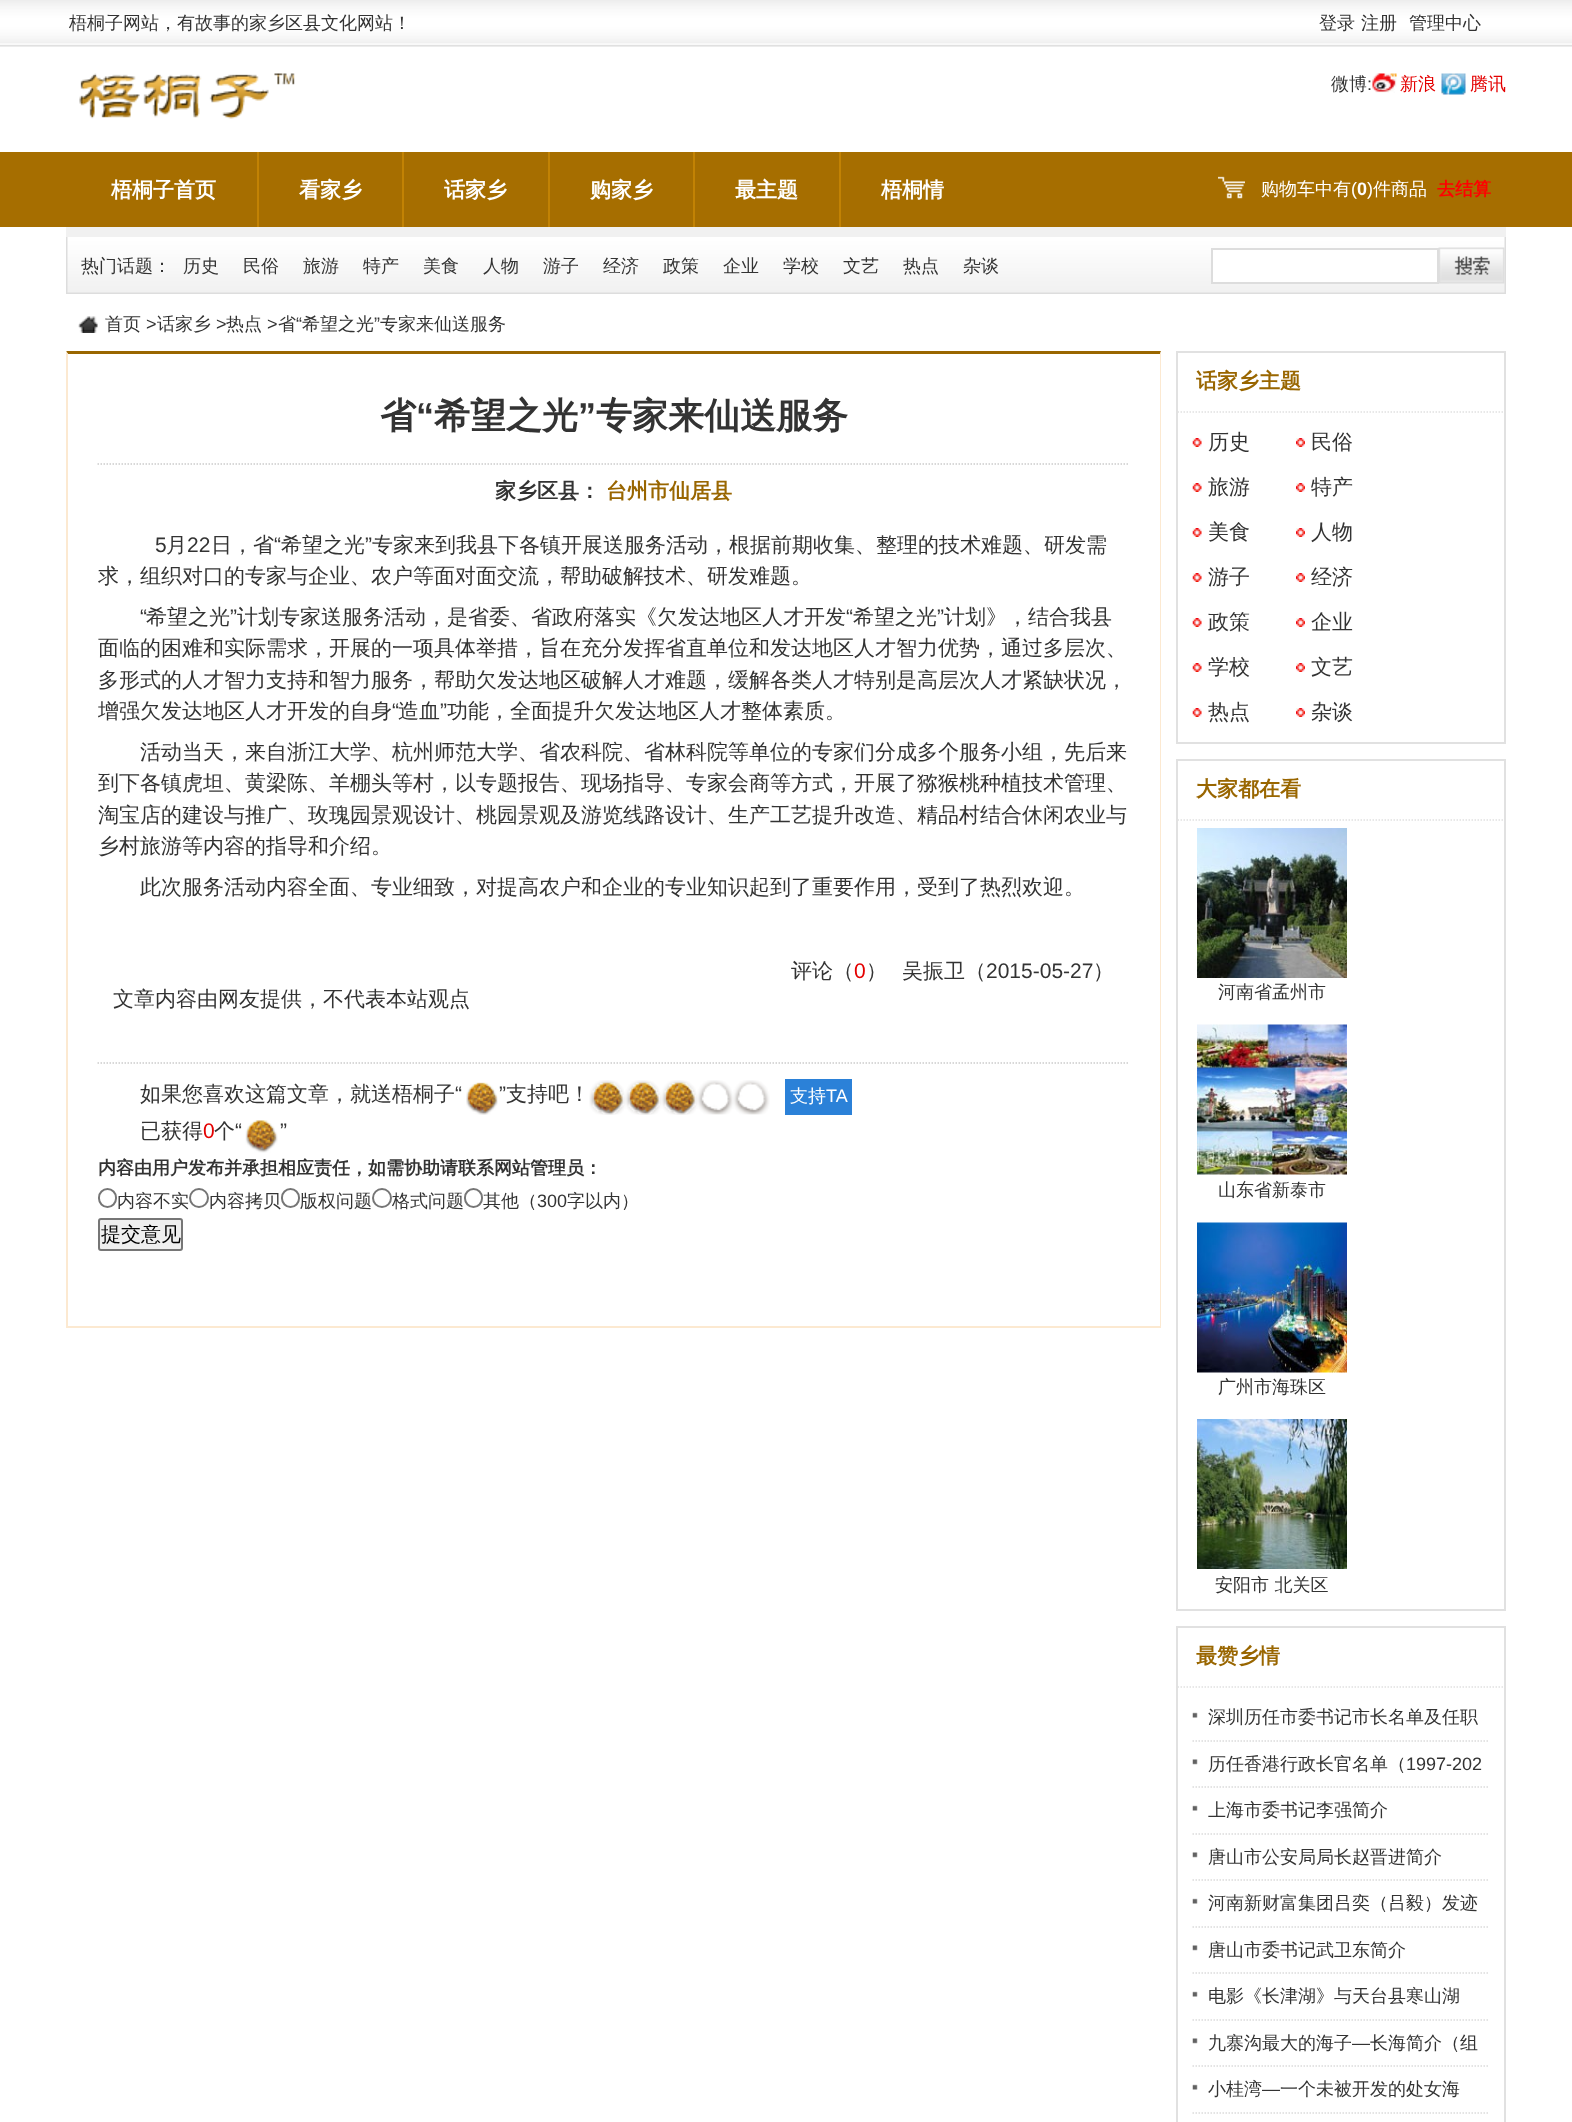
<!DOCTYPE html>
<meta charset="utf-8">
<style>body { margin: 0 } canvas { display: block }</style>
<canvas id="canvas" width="1572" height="2122"></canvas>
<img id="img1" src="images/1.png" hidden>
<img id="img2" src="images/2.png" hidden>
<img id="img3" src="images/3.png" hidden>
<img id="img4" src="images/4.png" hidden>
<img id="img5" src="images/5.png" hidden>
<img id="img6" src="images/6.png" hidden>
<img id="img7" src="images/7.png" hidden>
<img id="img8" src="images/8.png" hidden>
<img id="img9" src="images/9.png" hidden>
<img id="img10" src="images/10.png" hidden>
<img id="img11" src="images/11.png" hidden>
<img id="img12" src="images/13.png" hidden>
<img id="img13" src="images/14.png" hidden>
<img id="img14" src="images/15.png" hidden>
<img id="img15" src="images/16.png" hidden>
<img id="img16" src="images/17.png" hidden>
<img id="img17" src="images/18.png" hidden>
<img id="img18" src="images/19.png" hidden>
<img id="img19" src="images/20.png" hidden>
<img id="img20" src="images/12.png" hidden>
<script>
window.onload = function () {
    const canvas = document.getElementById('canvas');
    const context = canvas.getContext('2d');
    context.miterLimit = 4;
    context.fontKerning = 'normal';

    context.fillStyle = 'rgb(255, 255, 255)';
    context.fillRect(0, 0, 1572, 2122);
    context.drawImage(document.getElementById('img1'), 0, 0, 1572, 47);
    context.drawImage(document.getElementById('img2'), 79, 73, 216, 46);
    context.drawImage(document.getElementById('img3'), 1372, 73, 25, 20);
    context.drawImage(document.getElementById('img4'), 1441, 73, 25, 22);
    context.fillStyle = 'rgb(166, 110, 0)';
    context.fillRect(0, 152, 1572, 75);
    context.fillStyle = 'rgb(194, 130, 4)';
    context.fillRect(257, 152, 2, 75);
    context.fillRect(402, 152, 2, 75);
    context.fillRect(548, 152, 2, 75);
    context.fillRect(693, 152, 2, 75);
    context.fillRect(839, 152, 2, 75);
    context.drawImage(document.getElementById('img5'), 1218, 176, 27, 23);
    context.fillStyle = 'rgb(241, 241, 241)';
    context.fillRect(66, 227, 1440, 10);
    context.drawImage(document.getElementById('img6'), 66, 237, 1440, 57);
    context.fillStyle = 'rgb(255, 255, 255)';
    context.beginPath();
    context.rect(1212, 249, 226, 34);
    context.fill();
    context.strokeStyle = 'rgb(221, 221, 221)';
    context.lineWidth = 2;
    context.stroke();
    context.drawImage(document.getElementById('img7'), 1438, 247, 67, 37);
    context.drawImage(document.getElementById('img8'), 78, 316, 20, 17);
    context.fillStyle = 'rgb(153, 102, 0)';
    context.beginPath();
    context.moveTo(66, 351);
    context.lineTo(1161, 351);
    context.lineTo(1160, 354);
    context.lineTo(68, 354);
    context.closePath();
    context.fill();
    context.fillStyle = 'rgb(252, 233, 209)';
    context.beginPath();
    context.moveTo(1161, 351);
    context.lineTo(1161, 1328);
    context.lineTo(1160, 1326);
    context.lineTo(1160, 354);
    context.closePath();
    context.fill();
    context.fillRect(66, 1326, 1095, 2);
    context.beginPath();
    context.moveTo(66, 1328);
    context.lineTo(66, 351);
    context.lineTo(68, 354);
    context.lineTo(68, 1326);
    context.closePath();
    context.fill();
    context.beginPath();
    context.moveTo(97.5, 464);
    context.lineTo(1129.5, 464);
    context.strokeStyle = 'rgb(204, 204, 204)';
    context.lineWidth = 1.5;
    context.setLineDash([1.5, 1.5]);
    context.stroke();
    context.beginPath();
    context.moveTo(97.5, 1063);
    context.lineTo(1129.5, 1063);
    context.stroke();
    context.drawImage(document.getElementById('img9'), 466, 1082, 32, 33);
    context.drawImage(document.getElementById('img10'), 589, 1080, 181, 35);
    context.drawImage(document.getElementById('img11'), 592, 1082, 104, 33);
    context.fillStyle = 'rgb(43, 129, 216)';
    context.fillRect(785, 1079, 67, 36);
    context.beginPath();
    context.roundRect(99, 1189, 17, 18, 8.5);
    context.strokeStyle = 'rgb(118, 118, 118)';
    context.lineWidth = 2;
    context.setLineDash([]);
    context.stroke();
    context.beginPath();
    context.arc(199, 1198, 9, 0, 2 * Math.PI);
    context.stroke();
    context.beginPath();
    context.roundRect(282, 1189, 17, 18, 8.5);
    context.stroke();
    context.beginPath();
    context.arc(382, 1198, 9, 0, 2 * Math.PI);
    context.stroke();
    context.beginPath();
    context.roundRect(465, 1189, 17, 18, 8.5);
    context.stroke();
    context.fillStyle = 'rgb(239, 239, 239)';
    context.beginPath();
    context.roundRect(99, 1219, 83, 31, 2);
    context.fill();
    context.stroke();
    context.strokeStyle = 'rgb(225, 225, 225)';
    context.strokeRect(1177, 352, 328, 391);
    context.beginPath();
    context.moveTo(1177.5, 412);
    context.lineTo(1504.5, 412);
    context.lineWidth = 1.5;
    context.setLineDash([1.5, 1.5]);
    context.stroke();
    context.drawImage(document.getElementById('img12'), 1192, 438, 10, 9);
    context.drawImage(document.getElementById('img13'), 1296, 438, 9, 9);
    context.drawImage(document.getElementById('img12'), 1192, 483, 10, 9);
    context.drawImage(document.getElementById('img13'), 1296, 483, 9, 9);
    context.drawImage(document.getElementById('img12'), 1192, 528, 10, 9);
    context.drawImage(document.getElementById('img13'), 1296, 528, 9, 9);
    context.drawImage(document.getElementById('img12'), 1192, 573, 10, 9);
    context.drawImage(document.getElementById('img13'), 1296, 573, 9, 9);
    context.drawImage(document.getElementById('img12'), 1192, 618, 10, 9);
    context.drawImage(document.getElementById('img13'), 1296, 618, 9, 9);
    context.drawImage(document.getElementById('img12'), 1192, 663, 10, 9);
    context.drawImage(document.getElementById('img13'), 1296, 663, 9, 9);
    context.drawImage(document.getElementById('img12'), 1192, 708, 10, 9);
    context.drawImage(document.getElementById('img13'), 1296, 708, 9, 9);
    context.lineWidth = 2;
    context.setLineDash([]);
    context.strokeRect(1177, 760, 328, 850);
    context.beginPath();
    context.moveTo(1177.5, 820);
    context.lineTo(1504.5, 820);
    context.lineWidth = 1.5;
    context.setLineDash([1.5, 1.5]);
    context.stroke();
    context.drawImage(document.getElementById('img14'), 1197, 828, 150, 150);
    context.drawImage(document.getElementById('img15'), 1197, 1024, 150, 151);
    context.drawImage(document.getElementById('img16'), 1197, 1222, 150, 151);
    context.drawImage(document.getElementById('img17'), 1197, 1419, 150, 150);
    context.lineWidth = 2;
    context.setLineDash([]);
    context.strokeRect(1177, 1627, 328, 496);
    context.beginPath();
    context.moveTo(1177.5, 1687);
    context.lineTo(1504.5, 1687);
    context.lineWidth = 1.5;
    context.setLineDash([1.5, 1.5]);
    context.stroke();
    context.beginPath();
    context.moveTo(1192.5, 1741);
    context.lineTo(1489.5, 1741);
    context.strokeStyle = 'rgb(219, 219, 219)';
    context.stroke();
    context.drawImage(document.getElementById('img18'), 1192, 1712, 6, 6);
    context.beginPath();
    context.moveTo(1192.5, 1787);
    context.lineTo(1489.5, 1787);
    context.stroke();
    context.drawImage(document.getElementById('img19'), 1192, 1759, 6, 6);
    context.beginPath();
    context.moveTo(1192.5, 1834);
    context.lineTo(1489.5, 1834);
    context.stroke();
    context.drawImage(document.getElementById('img18'), 1192, 1805, 6, 6);
    context.beginPath();
    context.moveTo(1192.5, 1880);
    context.lineTo(1489.5, 1880);
    context.stroke();
    context.drawImage(document.getElementById('img19'), 1192, 1852, 6, 6);
    context.beginPath();
    context.moveTo(1192.5, 1927);
    context.lineTo(1489.5, 1927);
    context.stroke();
    context.drawImage(document.getElementById('img18'), 1192, 1898, 6, 6);
    context.beginPath();
    context.moveTo(1192.5, 1973);
    context.lineTo(1489.5, 1973);
    context.stroke();
    context.drawImage(document.getElementById('img19'), 1192, 1945, 6, 6);
    context.beginPath();
    context.moveTo(1192.5, 2020);
    context.lineTo(1489.5, 2020);
    context.stroke();
    context.drawImage(document.getElementById('img18'), 1192, 1991, 6, 6);
    context.beginPath();
    context.moveTo(1192.5, 2066);
    context.lineTo(1489.5, 2066);
    context.stroke();
    context.drawImage(document.getElementById('img19'), 1192, 2038, 6, 6);
    context.beginPath();
    context.moveTo(1192.5, 2113);
    context.lineTo(1489.5, 2113);
    context.stroke();
    context.drawImage(document.getElementById('img18'), 1192, 2084, 6, 6);
    context.font = '500 18px WenQuanYi Zen Hei';
    context.fillStyle = 'rgb(51, 51, 51)';
    context.fillText('梧桐子网站，有故事的家乡区县文化网站！', 69, 29);
    context.fillText('登录', 1319, 29);
    context.fillText('注册', 1361, 29);
    context.fillText('管理中心', 1409, 29);
    context.fillText('微博', 1331, 90);
    context.font = '18px Liberation Sans';
    context.fillText(':', 1367, 90);
    context.font = '500 18px WenQuanYi Zen Hei';
    context.fillStyle = 'rgb(228, 0, 0)';
    context.fillText('新浪', 1400, 90);
    context.fillText('腾讯', 1470, 90);
    context.font = 'bold 21px WenQuanYi Zen Hei';
    context.fillStyle = 'rgb(255, 255, 255)';
    context.fillText('梧桐子首页', 111, 197);
    context.fillText('看家乡', 299, 197);
    context.fillText('话家乡', 444, 197);
    context.fillText('购家乡', 590, 197);
    context.fillText('最主题', 735, 197);
    context.fillText('梧桐情', 881, 197);
    context.font = '500 18px WenQuanYi Zen Hei';
    context.fillText('购物车中有', 1261, 195);
    context.font = '18px Liberation Sans';
    context.fillText('(', 1351, 195);
    context.font = 'bold 18px Liberation Sans';
    context.fillText('0', 1357, 195);
    context.font = '18px Liberation Sans';
    context.fillText(')', 1367, 195);
    context.font = '500 18px WenQuanYi Zen Hei';
    context.fillText('件商品', 1373, 195);
    context.font = 'bold 18px WenQuanYi Zen Hei';
    context.fillStyle = 'rgb(255, 0, 0)';
    context.fillText('去结算', 1437, 195);
    context.font = '500 18px WenQuanYi Zen Hei';
    context.fillStyle = 'rgb(51, 51, 51)';
    context.fillText('热门话题：', 81, 272);
    context.fillText('历史', 183, 272);
    context.fillText('民俗', 243, 272);
    context.fillText('旅游', 303, 272);
    context.fillText('特产', 363, 272);
    context.fillText('美食', 423, 272);
    context.fillText('人物', 483, 272);
    context.fillText('游子', 543, 272);
    context.fillText('经济', 603, 272);
    context.fillText('政策', 663, 272);
    context.fillText('企业', 723, 272);
    context.fillText('学校', 783, 272);
    context.fillText('文艺', 843, 272);
    context.fillText('热点', 903, 272);
    context.fillText('杂谈', 963, 272);
    context.fillText('首页', 105, 330);
    context.font = '18px Liberation Sans';
    context.fillText('>', 146, 330);
    context.font = '500 18px WenQuanYi Zen Hei';
    context.fillText('话家乡', 157, 330);
    context.font = '18px Liberation Sans';
    context.fillText('>', 216, 330);
    context.font = '500 18px WenQuanYi Zen Hei';
    context.fillText('热点', 226, 330);
    context.font = '18px Liberation Sans';
    context.fillText('>', 267, 330);
    context.font = '500 18px WenQuanYi Zen Hei';
    context.fillText('省', 278, 330);
    context.font = '18px Liberation Sans';
    context.fillText('“', 296, 330);
    context.font = '500 18px WenQuanYi Zen Hei';
    context.fillText('希望之光', 302, 330);
    context.font = '18px Liberation Sans';
    context.fillText('”', 374, 330);
    context.font = '500 18px WenQuanYi Zen Hei';
    context.fillText('专家来仙送服务', 380, 330);
    context.font = 'bold 36px WenQuanYi Zen Hei';
    context.fillText('省', 380, 428);
    context.font = 'bold 36px Liberation Sans';
    context.fillText('“', 416, 428);
    context.font = 'bold 36px WenQuanYi Zen Hei';
    context.fillText('希望之光', 434, 428);
    context.font = 'bold 36px Liberation Sans';
    context.fillText('”', 578, 428);
    context.font = 'bold 36px WenQuanYi Zen Hei';
    context.fillText('专家来仙送服务', 596, 428);
    context.font = 'bold 21px WenQuanYi Zen Hei';
    context.fillText('家乡区县：', 495, 498);
    context.fillStyle = 'rgb(153, 102, 0)';
    context.fillText('台州市仙居县', 606, 498);
    context.font = '21px Liberation Sans';
    context.fillStyle = 'rgb(51, 51, 51)';
    context.fillText('5', 155, 552);
    context.font = '500 21px WenQuanYi Zen Hei';
    context.fillText('月', 166, 552);
    context.font = '21px Liberation Sans';
    context.fillText('22', 187, 552);
    context.font = '500 21px WenQuanYi Zen Hei';
    context.fillText('日，省', 211, 552);
    context.font = '21px Liberation Sans';
    context.fillText('“', 274, 552);
    context.font = '500 21px WenQuanYi Zen Hei';
    context.fillText('希望之光', 281, 552);
    context.font = '21px Liberation Sans';
    context.fillText('”', 365, 552);
    context.font = '500 21px WenQuanYi Zen Hei';
    context.fillText('专家来到我县下各镇开展送服务活动，根据前期收集、整理的技术难题、研发需', 372, 552);
    context.fillText('求，组织对口的专家与企业、农户等面对面交流，帮助破解技术、研发难题。', 98, 583);
    context.font = '21px Liberation Sans';
    context.fillText('“', 140, 624);
    context.font = '500 21px WenQuanYi Zen Hei';
    context.fillText('希望之光', 146, 624);
    context.font = '21px Liberation Sans';
    context.fillText('”', 230, 624);
    context.font = '500 21px WenQuanYi Zen Hei';
    context.fillText('计划专家送服务活动，是省委、省政府落实《欠发达地区人才开发', 237, 624);
    context.font = '21px Liberation Sans';
    context.fillText('“', 846, 624);
    context.font = '500 21px WenQuanYi Zen Hei';
    context.fillText('希望之光', 853, 624);
    context.font = '21px Liberation Sans';
    context.fillText('”', 937, 624);
    context.font = '500 21px WenQuanYi Zen Hei';
    context.fillText('计划》，结合我县', 944, 624);
    context.fillText('面临的困难和实际需求，开展的一项具体举措，旨在充分发挥省直单位和发达地区人才智力优势，通过多层次、', 98, 655);
    context.fillText('多形式的人才智力支持和智力服务，帮助欠发达地区破解人才难题，缓解各类人才特别是高层次人才紧缺状况，', 98, 687);
    context.save();
    context.beginPath();
    context.rect(98, 510, 1032, 428);
    context.clip();
    context.fillText('增强欠发达地区人才开发的自身', 98, 718);
    context.restore();
    context.font = '21px Liberation Sans';
    context.fillText('“', 392, 718);
    context.font = '500 21px WenQuanYi Zen Hei';
    context.fillText('造血', 398, 718);
    context.font = '21px Liberation Sans';
    context.fillText('”', 440, 718);
    context.font = '500 21px WenQuanYi Zen Hei';
    context.fillText('功能，全面提升欠发达地区人才整体素质。', 447, 718);
    context.fillText('活动当天，来自浙江大学、杭州师范大学、省农科院、省林科院等单位的专家们分成多个服务小组，先后来', 140, 759);
    context.fillText('到下各镇虎坦、黄梁陈、羊棚头等村，以专题报告、现场指导、专家会商等方式，开展了猕猴桃种植技术管理、', 98, 790);
    context.fillText('淘宝店的建设与推广、玫瑰园景观设计、桃园景观及游览线路设计、生产工艺提升改造、精品村结合休闲农业与', 98, 822);
    context.fillText('乡村旅游等内容的指导和介绍。', 98, 853);
    context.fillText('此次服务活动内容全面、专业细致，对提高农户和企业的专业知识起到了重要作用，受到了热烈欢迎。', 140, 894);
    context.fillText('评论（', 791, 978);
    context.font = '21px Liberation Sans';
    context.fillStyle = 'rgb(228, 0, 0)';
    context.fillText('0', 854, 978);
    context.font = '500 21px WenQuanYi Zen Hei';
    context.fillStyle = 'rgb(51, 51, 51)';
    context.fillText('）', 866, 978);
    context.fillText('吴振卫（', 902, 978);
    context.font = '21px Liberation Sans';
    context.fillText('2015-05-27', 986, 978);
    context.font = '500 21px WenQuanYi Zen Hei';
    context.fillText('）', 1093, 978);
    context.fillText('文章内容由网友提供，不代表本站观点', 113, 1006);
    context.fillText('如果您喜欢这篇文章，就送梧桐子', 140, 1101);
    context.font = '21px Liberation Sans';
    context.fillText('“', 455, 1101);
    context.fillText('”', 499, 1101);
    context.font = '500 21px WenQuanYi Zen Hei';
    context.fillText('支持吧！', 506, 1101);
    context.font = '500 18px WenQuanYi Zen Hei';
    context.fillStyle = 'rgb(255, 255, 255)';
    context.fillText('支持', 790, 1102);
    context.font = '18px Liberation Sans';
    context.fillText('TA', 826, 1102);
    context.font = '500 21px WenQuanYi Zen Hei';
    context.fillStyle = 'rgb(51, 51, 51)';
    context.fillText('已获得', 140, 1138);
    context.font = '21px Liberation Sans';
    context.fillStyle = 'rgb(228, 0, 0)';
    context.fillText('0', 203, 1138);
    context.font = '500 21px WenQuanYi Zen Hei';
    context.fillStyle = 'rgb(51, 51, 51)';
    context.fillText('个', 214, 1138);
    context.font = '21px Liberation Sans';
    context.fillText('“', 235, 1138);
    context.drawImage(document.getElementById('img20'), 241, 1120, 37, 33);
    context.fillText('”', 280, 1138);
    context.font = 'bold 18px WenQuanYi Zen Hei';
    context.fillText('内容由用户发布并承担相应责任，如需协助请联系网站管理员：', 98, 1174);
    context.font = '500 18px WenQuanYi Zen Hei';
    context.fillText('内容不实', 117, 1207);
    context.fillText('内容拷贝', 209, 1207);
    context.fillText('版权问题', 300, 1207);
    context.fillText('格式问题', 392, 1207);
    context.fillText('其他（', 483, 1207);
    context.font = '18px Liberation Sans';
    context.fillText('300', 537, 1207);
    context.font = '500 18px WenQuanYi Zen Hei';
    context.fillText('字以内）', 567, 1207);
    context.font = '500 20px WenQuanYi Zen Hei';
    context.fillStyle = 'rgb(0, 0, 0)';
    context.fillText('提交意见', 101, 1241);
    context.font = 'bold 21px WenQuanYi Zen Hei';
    context.fillStyle = 'rgb(153, 102, 0)';
    context.fillText('话家乡主题', 1196, 388);
    context.font = '500 21px WenQuanYi Zen Hei';
    context.fillStyle = 'rgb(51, 51, 51)';
    context.fillText('历史', 1208, 449);
    context.fillText('民俗', 1311, 449);
    context.fillText('旅游', 1208, 494);
    context.fillText('特产', 1311, 494);
    context.fillText('美食', 1208, 539);
    context.fillText('人物', 1311, 539);
    context.fillText('游子', 1208, 584);
    context.fillText('经济', 1311, 584);
    context.fillText('政策', 1208, 629);
    context.fillText('企业', 1311, 629);
    context.fillText('学校', 1208, 674);
    context.fillText('文艺', 1311, 674);
    context.fillText('热点', 1208, 719);
    context.fillText('杂谈', 1311, 719);
    context.font = 'bold 21px WenQuanYi Zen Hei';
    context.fillStyle = 'rgb(153, 102, 0)';
    context.fillText('大家都在看', 1196, 796);
    context.font = '500 18px WenQuanYi Zen Hei';
    context.fillStyle = 'rgb(51, 51, 51)';
    context.fillText('河南省孟州市', 1218, 998);
    context.fillText('山东省新泰市', 1218, 1196);
    context.fillText('广州市海珠区', 1218, 1393);
    context.fillText('安阳市 北关区', 1215, 1591);
    context.font = 'bold 21px WenQuanYi Zen Hei';
    context.fillStyle = 'rgb(153, 102, 0)';
    context.fillText('最赞乡情', 1196, 1663);
    context.font = '500 18px WenQuanYi Zen Hei';
    context.fillStyle = 'rgb(51, 51, 51)';
    context.fillText('深圳历任市委书记市长名单及任职', 1208, 1723);
    context.fillText('历任香港行政长官名单（', 1208, 1770);
    context.font = '18px Liberation Sans';
    context.fillText('1997-202', 1406, 1770);
    context.font = '500 18px WenQuanYi Zen Hei';
    context.fillText('上海市委书记李强简介', 1208, 1816);
    context.fillText('唐山市公安局局长赵晋进简介', 1208, 1863);
    context.fillText('河南新财富集团吕奕（吕毅）发迹', 1208, 1909);
    context.fillText('唐山市委书记武卫东简介', 1208, 1956);
    context.fillText('电影《长津湖》与天台县寒山湖', 1208, 2002);
    context.fillText('九寨沟最大的海子', 1208, 2049);
    context.font = '18px Liberation Sans';
    context.fillText('—', 1352, 2049);
    context.font = '500 18px WenQuanYi Zen Hei';
    context.fillText('长海简介（组', 1370, 2049);
    context.fillText('小桂湾', 1208, 2095);
    context.font = '18px Liberation Sans';
    context.fillText('—', 1262, 2095);
    context.font = '500 18px WenQuanYi Zen Hei';
    context.fillText('一个未被开发的处女海', 1280, 2095);
};
</script>
